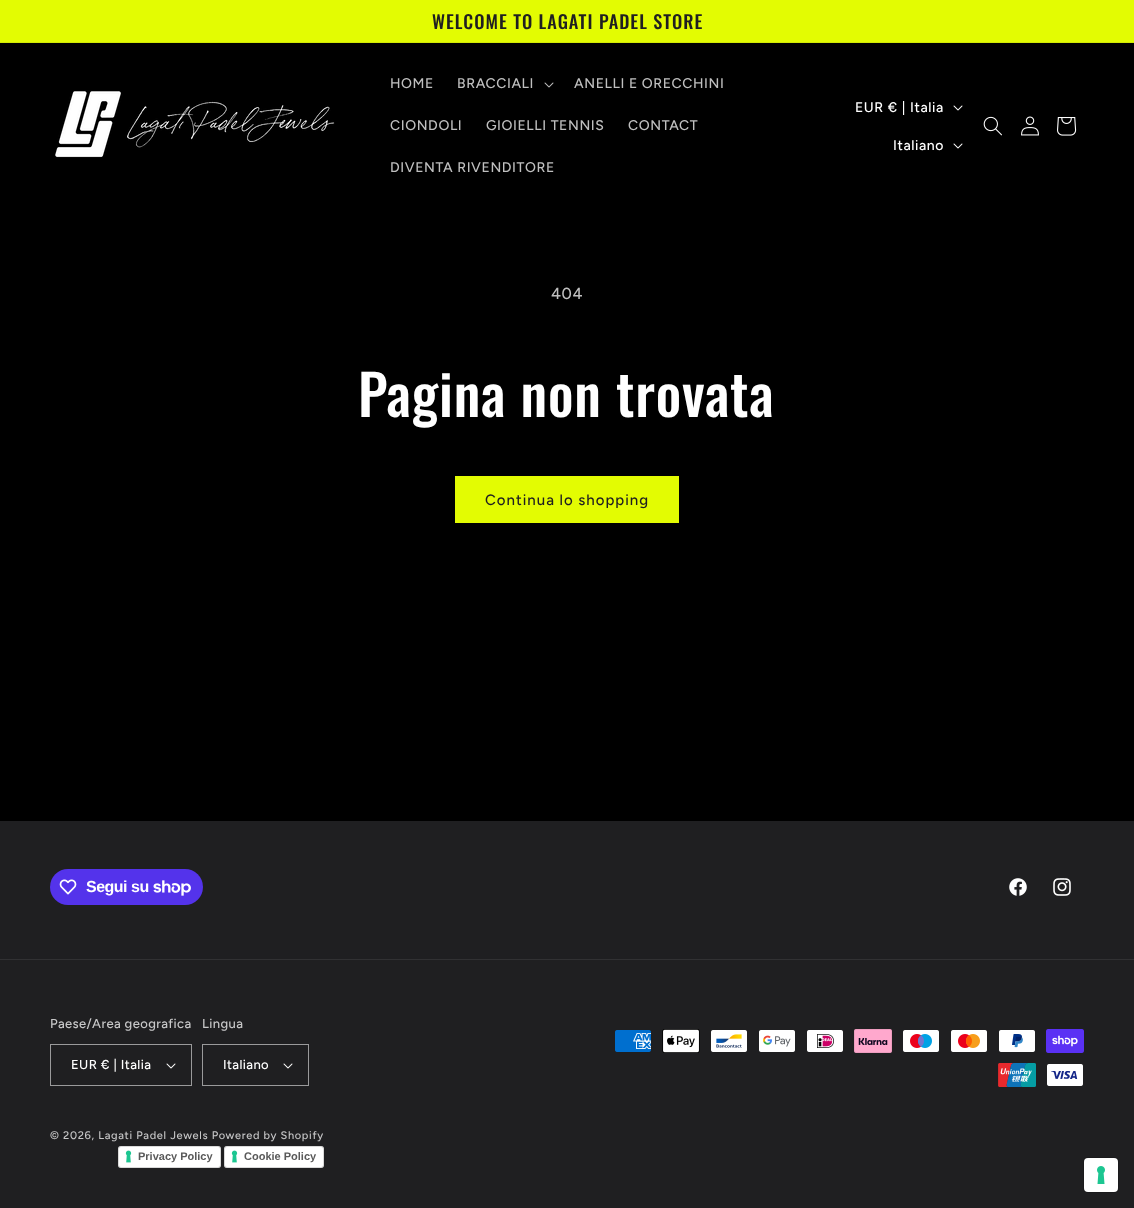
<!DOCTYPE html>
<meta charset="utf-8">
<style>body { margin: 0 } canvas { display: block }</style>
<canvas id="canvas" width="1134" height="1208"></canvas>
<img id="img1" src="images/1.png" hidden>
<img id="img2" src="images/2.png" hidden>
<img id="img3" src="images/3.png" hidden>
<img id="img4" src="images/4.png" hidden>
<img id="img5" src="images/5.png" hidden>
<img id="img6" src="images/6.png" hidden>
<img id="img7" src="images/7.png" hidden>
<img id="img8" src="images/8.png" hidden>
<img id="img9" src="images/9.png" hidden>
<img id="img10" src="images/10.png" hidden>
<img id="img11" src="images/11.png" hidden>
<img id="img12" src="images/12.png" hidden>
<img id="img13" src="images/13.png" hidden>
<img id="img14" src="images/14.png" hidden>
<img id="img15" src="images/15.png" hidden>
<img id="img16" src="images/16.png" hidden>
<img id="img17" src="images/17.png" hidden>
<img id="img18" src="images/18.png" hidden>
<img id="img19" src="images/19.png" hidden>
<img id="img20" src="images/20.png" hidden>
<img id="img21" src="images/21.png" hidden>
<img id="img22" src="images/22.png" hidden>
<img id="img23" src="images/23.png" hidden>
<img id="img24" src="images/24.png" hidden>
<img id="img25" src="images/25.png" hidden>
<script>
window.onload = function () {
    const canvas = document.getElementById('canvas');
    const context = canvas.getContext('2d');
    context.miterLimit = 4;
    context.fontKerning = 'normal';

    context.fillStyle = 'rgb(0, 0, 0)';
    context.fillRect(0, 0, 1134, 1208);
    context.fillStyle = 'rgb(227, 252, 2)';
    context.fillRect(0, 0, 1134, 42);
    context.fillStyle = 'rgb(211, 234, 4)';
    context.fillRect(0, 42, 1134, 1);
    context.drawImage(document.getElementById('img1'), 55, 91, 280, 67);
    context.drawImage(document.getElementById('img2'), 544, 82, 10, 6);
    context.drawImage(document.getElementById('img3'), 953, 105, 10, 6);
    context.drawImage(document.getElementById('img3'), 953, 143, 10, 6);
    context.drawImage(document.getElementById('img4'), 983, 116, 19, 20);
    context.drawImage(document.getElementById('img5'), 1021, 116, 18, 20);
    context.drawImage(document.getElementById('img6'), 1057, 117, 20, 19);
    context.fillStyle = 'rgb(227, 252, 2)';
    context.fillRect(455, 476, 224, 47);
    context.fillStyle = 'rgb(31, 31, 33)';
    context.fillRect(0, 821, 1134, 387);
    context.fillStyle = 'rgb(84, 51, 235)';
    context.beginPath();
    context.roundRect(50, 869, 153, 36, 18);
    context.fill();
    context.drawImage(document.getElementById('img7'), 59, 879, 18, 16);
    context.drawImage(document.getElementById('img8'), 153, 880, 38, 16);
    context.drawImage(document.getElementById('img9'), 1009, 878, 18, 18);
    context.drawImage(document.getElementById('img10'), 1053, 878, 18, 18);
    context.fillStyle = 'rgb(49, 49, 51)';
    context.fillRect(0, 959, 1134, 1);
    context.drawImage(document.getElementById('img11'), 166, 1063, 10, 6);
    context.strokeStyle = 'rgb(154, 154, 155)';
    context.strokeRect(50.5, 1044.5, 141, 41);
    context.drawImage(document.getElementById('img11'), 283, 1063, 10, 6);
    context.strokeRect(202.5, 1044.5, 106, 41);
    context.drawImage(document.getElementById('img12'), 615, 1030, 36, 22);
    context.drawImage(document.getElementById('img13'), 662, 1029, 38, 24);
    context.drawImage(document.getElementById('img14'), 711, 1030, 36, 22);
    context.drawImage(document.getElementById('img15'), 759, 1030, 36, 22);
    context.drawImage(document.getElementById('img16'), 807, 1030, 36, 22);
    context.drawImage(document.getElementById('img17'), 854, 1029, 38, 24);
    context.drawImage(document.getElementById('img18'), 903, 1030, 36, 22);
    context.drawImage(document.getElementById('img19'), 951, 1030, 36, 22);
    context.drawImage(document.getElementById('img20'), 999, 1030, 36, 22);
    context.drawImage(document.getElementById('img21'), 1046, 1029, 38, 24);
    context.drawImage(document.getElementById('img22'), 998, 1063, 38, 24);
    context.drawImage(document.getElementById('img23'), 1047, 1064, 36, 22);
    context.fillStyle = 'rgb(255, 255, 255)';
    context.beginPath();
    context.roundRect(118, 1146, 103, 22, 3);
    context.fill();
    context.drawImage(document.getElementById('img24'), 125, 1150, 7, 13);
    context.beginPath();
    context.roundRect(118.5, 1146.5, 102, 21, 2.5);
    context.strokeStyle = 'rgba(0, 0, 0, 0.15)';
    context.stroke();
    context.beginPath();
    context.roundRect(224, 1146, 100, 22, 3);
    context.fill();
    context.drawImage(document.getElementById('img24'), 231, 1150, 7, 13);
    context.beginPath();
    context.roundRect(224.5, 1146.5, 99, 21, 2.5);
    context.stroke();
    context.beginPath();
    context.roundRect(1083.5, 1157.5, 35, 35, 4.5);
    context.strokeStyle = 'rgb(26, 26, 28)';
    context.stroke();
    context.beginPath();
    context.roundRect(1084, 1158, 34, 34, 4);
    context.fill();
    context.drawImage(document.getElementById('img25'), 1097, 1166, 8, 18);
    context.letterSpacing = '1px';
    context.font = '500 18.25px Oswald';
    context.fillStyle = 'rgb(31, 31, 33)';
    context.fillText('WELCOME TO LAGATI PADEL STORE', 432, 29);
    context.letterSpacing = '0.6px';
    context.font = '500 14px Figtree';
    context.fillStyle = 'rgb(191, 191, 191)';
    context.fillText('HOME', 390, 88);
    context.fillText('BRACCIALI', 457, 88);
    context.fillText('ANELLI E ORECCHINI', 574, 88);
    context.fillText('CIONDOLI', 390, 130);
    context.fillText('GIOIELLI TENNIS', 486, 130);
    context.fillText('CONTACT', 628, 130);
    context.fillText('DIVENTA RIVENDITORE', 390, 172);
    context.fillStyle = 'rgb(255, 255, 255)';
    context.fillText('EUR € | Italia', 855, 112);
    context.fillText('Italiano', 893, 150);
    context.font = '500 16px Figtree';
    context.fillStyle = 'rgb(191, 191, 191)';
    context.fillText('404', 551, 299);
    context.letterSpacing = '0.8px';
    context.font = '500 56px Oswald';
    context.fillStyle = 'rgb(255, 255, 255)';
    context.fillText('Pagina non trovata', 358, 417);
    context.letterSpacing = '1px';
    context.font = '500 15px Figtree';
    context.fillStyle = 'rgb(31, 31, 33)';
    context.fillText('Continua lo shopping', 485, 505);
    context.letterSpacing = '-0.5px';
    context.font = 'bold 16px Liberation Sans';
    context.fillStyle = 'rgb(255, 255, 255)';
    context.fillText('Segui su', 86, 892);
    context.letterSpacing = '0.4px';
    context.font = '500 13px Figtree';
    context.fillStyle = 'rgb(199, 199, 200)';
    context.fillText('Paese/Area geografica', 50, 1028);
    context.fillStyle = 'rgb(255, 255, 255)';
    context.fillText('EUR € | Italia', 71, 1069);
    context.fillStyle = 'rgb(199, 199, 200)';
    context.fillText('Lingua', 202, 1028);
    context.fillStyle = 'rgb(255, 255, 255)';
    context.fillText('Italiano', 223, 1069);
    context.letterSpacing = '0.7px';
    context.font = '500 11px Figtree';
    context.fillStyle = 'rgb(199, 199, 200)';
    context.fillText('© 2026, Lagati Padel Jewels Powered by Shopify', 50, 1139);
    context.letterSpacing = '0px';
    context.font = 'bold 11px Liberation Sans';
    context.fillStyle = 'rgb(89, 89, 89)';
    context.fillText('Privacy Policy', 138, 1160);
    context.fillText('Cookie Policy', 244, 1160);
};
</script>
